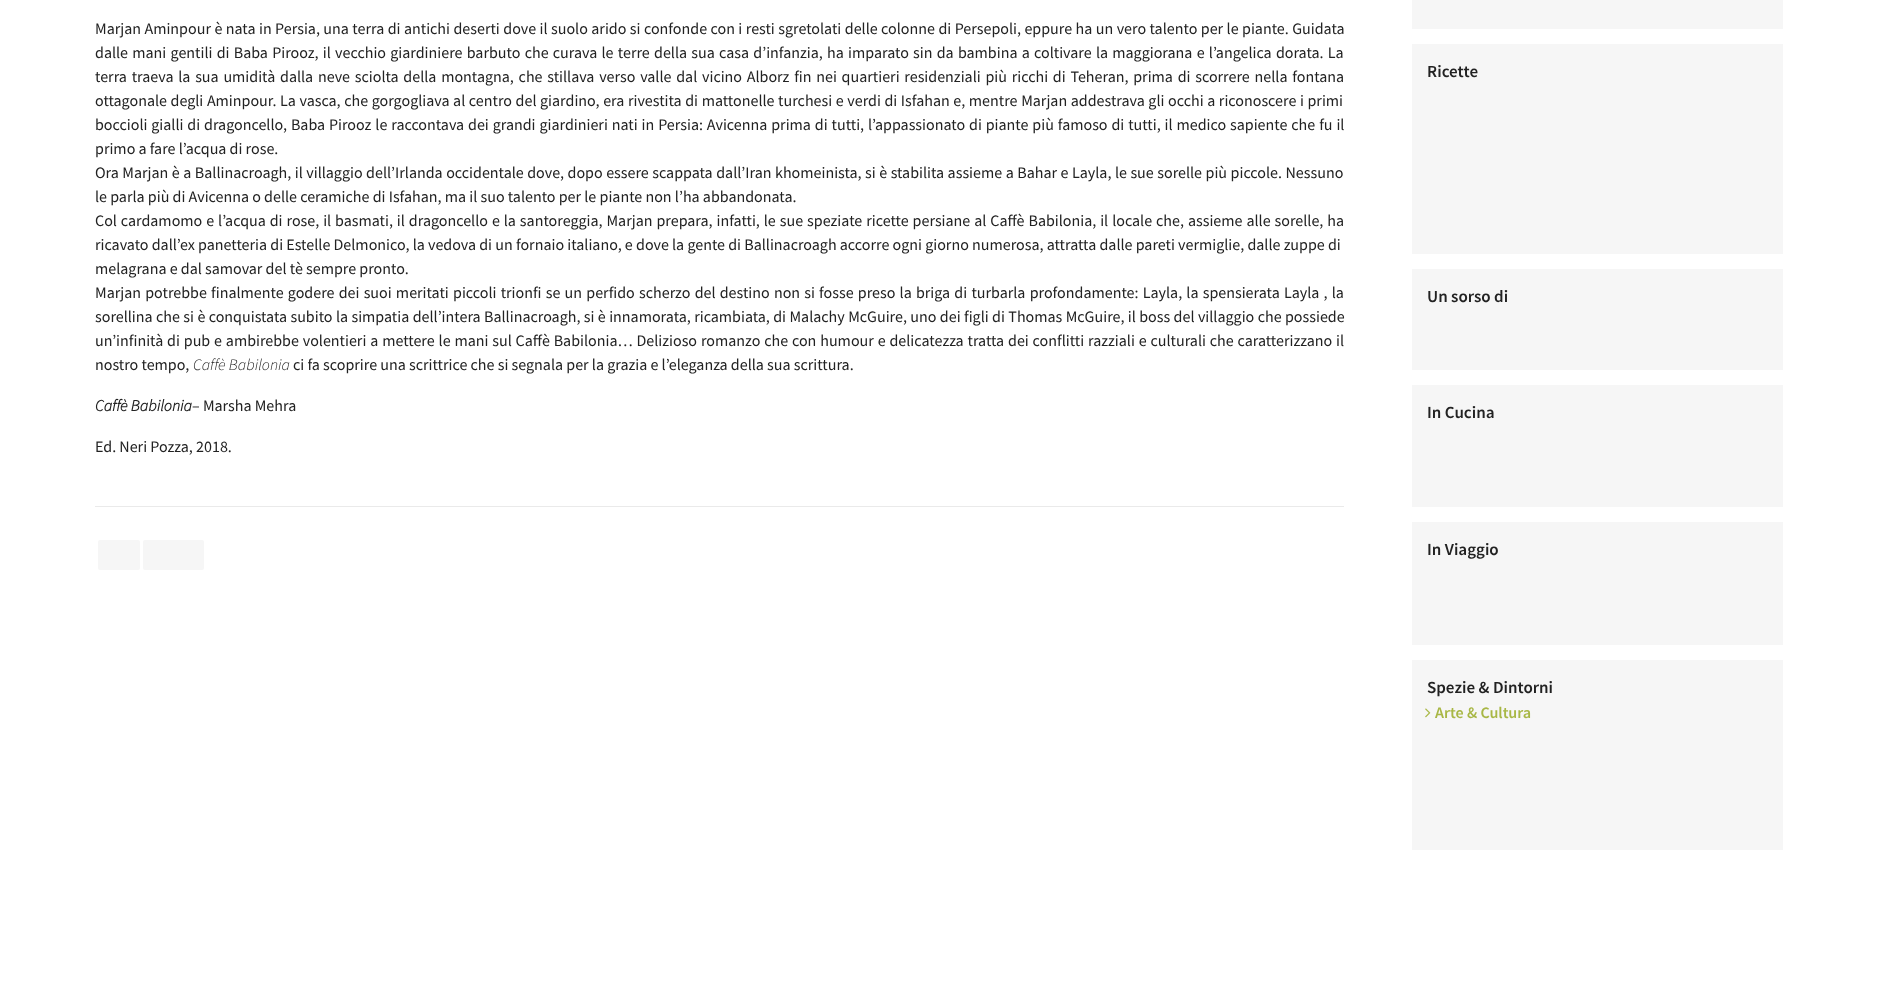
<!DOCTYPE html>
<meta charset="utf-8">
<style>body { margin: 0 } canvas { display: block }</style>
<canvas id="canvas" width="1878" height="1002"></canvas>
<img id="img1" src="images/1.png" hidden>
<script>
window.onload = function () {
    const canvas = document.getElementById('canvas');
    const context = canvas.getContext('2d');
    context.miterLimit = 4;
    context.fontKerning = 'normal';

    context.fillStyle = 'rgb(255, 255, 255)';
    context.fillRect(0, 0, 1878, 1002);
    context.fillStyle = 'rgb(234, 234, 234)';
    context.fillRect(95, 506, 1249, 1);
    context.fillStyle = 'rgb(246, 246, 246)';
    context.beginPath();
    context.roundRect(98, 540, 42, 30, 2);
    context.fill();
    context.beginPath();
    context.roundRect(143, 540, 61, 30, 2);
    context.fill();
    context.fillRect(1412, 0, 371, 29);
    context.fillRect(1412, 44, 371, 210);
    context.fillRect(1412, 269, 371, 101);
    context.fillRect(1412, 385, 371, 122);
    context.fillRect(1412, 522, 371, 123);
    context.fillRect(1412, 660, 371, 190);
    context.drawImage(document.getElementById('img1'), 1425, 708, 6, 10);
    context.wordSpacing = '0.25px';
    context.font = '16px Source Sans Pro';
    context.fillStyle = 'rgb(34, 34, 34)';
    context.fillText('Marjan Aminpour è nata in Persia, una terra di antichi deserti dove il suolo arido si confonde con i resti sgretolati delle colonne di Persepoli, eppure ha un vero talento per le piante. Guidata', 95, 34);
    context.wordSpacing = '1.05px';
    context.fillText('dalle mani gentili di Baba Pirooz, il vecchio giardiniere barbuto che curava le terre della sua casa d’infanzia, ha imparato sin da bambina a coltivare la maggiorana e l’angelica dorata. La', 95, 58);
    context.wordSpacing = '1.55px';
    context.fillText('terra traeva la sua umidità dalla neve sciolta della montagna, che stillava verso valle dal vicino Alborz fin nei quartieri residenziali più ricchi di Teheran, prima di scorrere nella fontana', 95, 82);
    context.wordSpacing = '0.4px';
    context.fillText('ottagonale degli Aminpour. La vasca, che gorgogliava al centro del giardino, era rivestita di mattonelle turchesi e verdi di Isfahan e, mentre Marjan addestrava gli occhi a riconoscere i primi', 95, 106);
    context.wordSpacing = '0.7px';
    context.fillText('boccioli gialli di dragoncello, Baba Pirooz le raccontava dei grandi giardinieri nati in Persia: Avicenna prima di tutti, l’appassionato di piante più famoso di tutti, il medico sapiente che fu il', 95, 130);
    context.wordSpacing = '0px';
    context.fillText('primo a fare l’acqua di rose.', 95, 154);
    context.wordSpacing = '0.3px';
    context.fillText('Ora Marjan è a Ballinacroagh, il villaggio dell’Irlanda occidentale dove, dopo essere scappata dall’Iran khomeinista, si è stabilita assieme a Bahar e Layla, le sue sorelle più piccole. Nessuno', 95, 178);
    context.wordSpacing = '0px';
    context.fillText('le parla più di Avicenna o delle ceramiche di Isfahan, ma il suo talento per le piante non l’ha abbandonata.', 95, 202);
    context.wordSpacing = '0.75px';
    context.fillText('Col cardamomo e l’acqua di rose, il basmati, il dragoncello e la santoreggia, Marjan prepara, infatti, le sue speziate ricette persiane al Caffè Babilonia, il locale che, assieme alle sorelle, ha', 95, 226);
    context.wordSpacing = '0px';
    context.fillText('ricavato dall’ex panetteria di Estelle Delmonico, la vedova di un fornaio italiano, e dove la gente di Ballinacroagh accorre ogni giorno numerosa, attratta dalle pareti vermiglie, dalle zuppe di', 95, 250);
    context.fillText('melagrana e dal samovar del tè sempre pronto.', 95, 274);
    context.wordSpacing = '1px';
    context.fillText('Marjan potrebbe finalmente godere dei suoi meritati piccoli trionfi se un perfido scherzo del destino non si fosse preso la briga di turbarla profondamente: Layla, la spensierata Layla , la', 95, 298);
    context.wordSpacing = '0.2px';
    context.fillText('sorellina che si è conquistata subito la simpatia dell’intera Ballinacroagh, si è innamorata, ricambiata, di Malachy McGuire, uno dei figli di Thomas McGuire, il boss del villaggio che possiede', 95, 322);
    context.wordSpacing = '0.65px';
    context.fillText('un’infinità di pub e ambirebbe volentieri a mettere le mani sul Caffè Babilonia… Delizioso romanzo che con humour e delicatezza tratta dei conflitti razziali e culturali che caratterizzano il', 95, 346);
    context.wordSpacing = '0px';
    context.fillText('nostro tempo,', 95, 370);
    context.font = 'italic 300 16px Source Sans Pro';
    context.fillText('Caffè Babilonia', 193, 370);
    context.font = '16px Source Sans Pro';
    context.fillText('ci fa scoprire una scrittrice che si segnala per la grazia e l’eleganza della sua scrittura.', 293, 370);
    context.font = 'italic bold 16px Source Sans Pro';
    context.fillText('Caffè Babilonia', 95, 411);
    context.font = '16px Source Sans Pro';
    context.fillText('– Marsha Mehra', 192, 411);
    context.fillText('Ed. Neri Pozza, 2018.', 95, 452);
    context.font = '600 17px Source Sans Pro';
    context.fillText('Ricette', 1427, 77);
    context.fillText('Un sorso di', 1427, 302);
    context.fillText('In Cucina', 1427, 418);
    context.fillText('In Viaggio', 1427, 555);
    context.fillText('Spezie & Dintorni', 1427, 693);
    context.font = '600 16px Source Sans Pro';
    context.fillStyle = 'rgb(168, 183, 69)';
    context.fillText('Arte & Cultura', 1435, 718);
};
</script>
